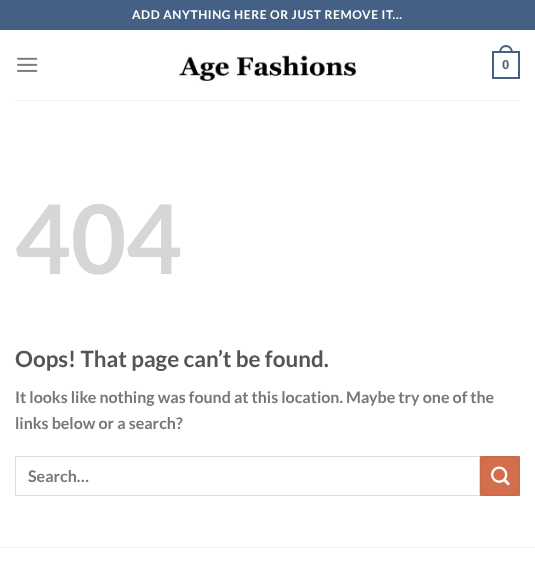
<!DOCTYPE html>
<meta charset="utf-8">
<style>body { margin: 0 } canvas { display: block }</style>
<canvas id="canvas" width="535" height="583"></canvas>
<img id="img1" src="images/1.png" hidden>
<img id="img2" src="images/2.png" hidden>
<img id="img3" src="images/3.png" hidden>
<script>
window.onload = function () {
    const canvas = document.getElementById('canvas');
    const context = canvas.getContext('2d');
    context.miterLimit = 4;
    context.fontKerning = 'normal';

    context.fillStyle = 'rgb(255, 255, 255)';
    context.fillRect(0, 0, 535, 583);
    context.fillStyle = 'rgb(68, 96, 132)';
    context.fillRect(0, 0, 535, 30);
    context.drawImage(document.getElementById('img1'), 17, 57, 21, 15);
    context.drawImage(document.getElementById('img2'), 178, 55, 179, 26);
    context.strokeStyle = 'rgb(68, 96, 132)';
    context.lineWidth = 2;
    context.strokeRect(493, 52, 26, 26);
    context.beginPath();
    context.moveTo(506, 45);
    context.bezierCurveTo(510.5, 45, 513, 49, 513, 53);
    context.lineTo(499, 53);
    context.bezierCurveTo(499, 49, 501.5, 45, 506, 45);
    context.closePath();
    context.moveTo(506, 47);
    context.bezierCurveTo(509.5, 47, 511, 50, 511, 53);
    context.lineTo(501, 53);
    context.bezierCurveTo(501, 50, 502.5, 47, 506, 47);
    context.closePath();
    context.fill('evenodd');
    context.fillStyle = 'rgb(241, 241, 241)';
    context.fillRect(15, 100, 505, 1);
    context.strokeStyle = 'rgb(221, 221, 221)';
    context.lineWidth = 1;
    context.strokeRect(15.5, 456.5, 464, 39);
    context.fillStyle = 'rgb(210, 110, 75)';
    context.beginPath();
    context.rect(480.5, 456.5, 39, 39);
    context.fill();
    context.strokeStyle = 'rgb(200, 105, 71)';
    context.stroke();
    context.drawImage(document.getElementById('img3'), 491, 466, 19, 20);
    context.fillStyle = 'rgb(242, 242, 242)';
    context.fillRect(0, 547, 535, 1);
    context.letterSpacing = '0.6px';
    context.font = 'bold 12px Lato';
    context.fillStyle = 'rgb(255, 255, 255)';
    context.fillText('ADD ANYTHING HERE OR JUST REMOVE IT...', 132, 19);
    context.letterSpacing = '0px';
    context.font = 'bold 13px Liberation Sans';
    context.fillStyle = 'rgb(68, 96, 132)';
    context.fillText('0', 502, 69);
    context.font = 'bold 96px Lato';
    context.fillStyle = 'rgb(214, 214, 214)';
    context.fillText('404', 15, 274);
    context.font = 'bold 22.4px Lato';
    context.fillStyle = 'rgb(85, 85, 85)';
    context.fillText('Oops! That page can’t be found.', 15, 367);
    context.font = 'bold 16px Lato';
    context.fillStyle = 'rgb(119, 119, 119)';
    context.fillText('It looks like nothing was found at this location. Maybe try one of the', 15, 403);
    context.fillText('links below or a search?', 15, 429);
    context.fillText('Search…', 28, 482);
};
</script>
